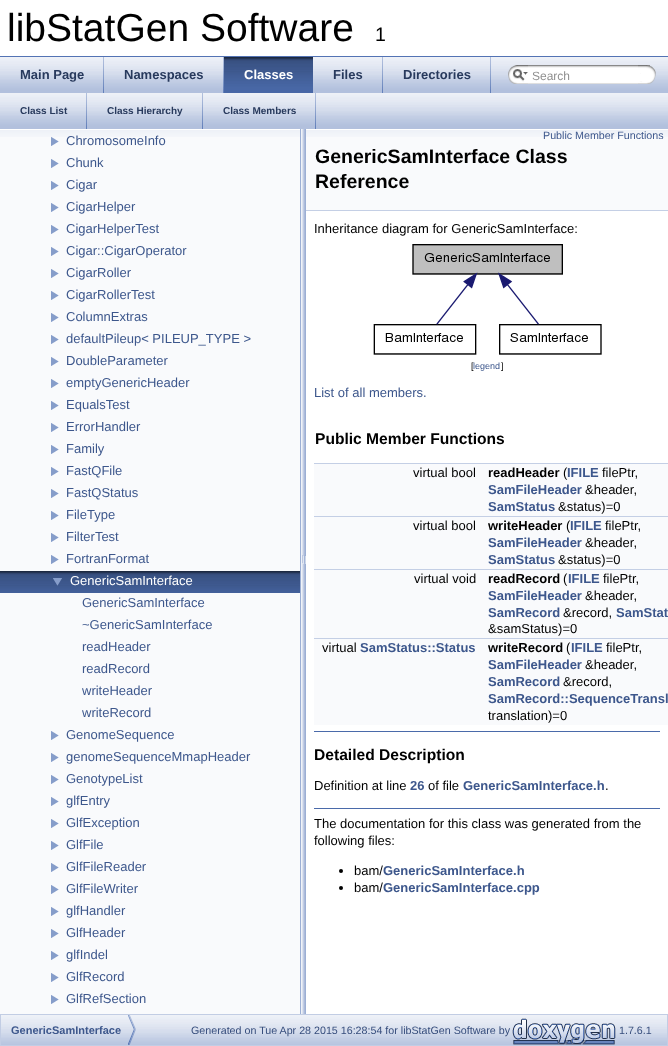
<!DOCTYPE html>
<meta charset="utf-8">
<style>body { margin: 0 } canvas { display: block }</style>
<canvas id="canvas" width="668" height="1046"></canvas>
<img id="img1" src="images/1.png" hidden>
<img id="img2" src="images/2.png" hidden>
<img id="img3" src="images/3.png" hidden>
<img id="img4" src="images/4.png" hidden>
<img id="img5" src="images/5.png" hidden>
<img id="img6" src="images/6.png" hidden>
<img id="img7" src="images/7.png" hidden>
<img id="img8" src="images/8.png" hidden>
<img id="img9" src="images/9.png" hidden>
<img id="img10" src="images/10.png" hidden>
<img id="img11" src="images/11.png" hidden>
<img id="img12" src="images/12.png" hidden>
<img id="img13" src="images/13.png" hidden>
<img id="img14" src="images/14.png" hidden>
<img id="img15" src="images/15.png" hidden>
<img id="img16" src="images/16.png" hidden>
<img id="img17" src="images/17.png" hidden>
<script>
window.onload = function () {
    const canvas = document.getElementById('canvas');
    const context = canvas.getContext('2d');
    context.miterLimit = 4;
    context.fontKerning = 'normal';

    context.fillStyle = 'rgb(255, 255, 255)';
    context.fillRect(0, 0, 668, 1046);
    context.fillStyle = 'rgb(83, 115, 180)';
    context.fillRect(0, 56, 668, 1);
    context.drawImage(document.getElementById('img1'), 0, 57, 668, 36);
    context.drawImage(document.getElementById('img2'), 103, 57, 1, 36);
    context.drawImage(document.getElementById('img2'), 223, 57, 1, 36);
    context.drawImage(document.getElementById('img3'), 224, 57, 89, 36);
    context.drawImage(document.getElementById('img2'), 382, 57, 1, 36);
    context.drawImage(document.getElementById('img2'), 490, 57, 1, 36);
    context.drawImage(document.getElementById('img4'), 508, 65, 20, 19);
    context.drawImage(document.getElementById('img5'), 513, 69, 15, 12);
    context.drawImage(document.getElementById('img6'), 528, 65, 122, 19);
    context.drawImage(document.getElementById('img7'), 638, 65, 18, 19);
    context.drawImage(document.getElementById('img1'), 0, 93, 668, 36);
    context.drawImage(document.getElementById('img2'), 86, 93, 1, 36);
    context.drawImage(document.getElementById('img2'), 202, 93, 1, 36);
    context.drawImage(document.getElementById('img2'), 315, 93, 1, 36);
    context.fillStyle = 'rgb(249, 250, 252)';
    context.fillRect(0, 137, 300, 877);
    context.drawImage(document.getElementById('img8'), 0, 129, 300, 8);
    context.drawImage(document.getElementById('img9'), 51, 137, 8, 9);
    context.drawImage(document.getElementById('img9'), 51, 159, 8, 9);
    context.drawImage(document.getElementById('img9'), 51, 181, 8, 9);
    context.drawImage(document.getElementById('img9'), 51, 203, 8, 9);
    context.drawImage(document.getElementById('img9'), 51, 225, 8, 9);
    context.drawImage(document.getElementById('img9'), 51, 247, 8, 9);
    context.drawImage(document.getElementById('img9'), 51, 269, 8, 9);
    context.drawImage(document.getElementById('img9'), 51, 291, 8, 9);
    context.drawImage(document.getElementById('img9'), 51, 313, 8, 9);
    context.drawImage(document.getElementById('img9'), 51, 335, 8, 9);
    context.drawImage(document.getElementById('img9'), 51, 357, 8, 9);
    context.drawImage(document.getElementById('img9'), 51, 379, 8, 9);
    context.drawImage(document.getElementById('img9'), 51, 401, 8, 9);
    context.drawImage(document.getElementById('img9'), 51, 423, 8, 9);
    context.drawImage(document.getElementById('img9'), 51, 445, 8, 9);
    context.drawImage(document.getElementById('img9'), 51, 467, 8, 9);
    context.drawImage(document.getElementById('img9'), 51, 489, 8, 9);
    context.drawImage(document.getElementById('img9'), 51, 511, 8, 9);
    context.drawImage(document.getElementById('img9'), 51, 533, 8, 9);
    context.drawImage(document.getElementById('img9'), 51, 555, 8, 9);
    context.drawImage(document.getElementById('img10'), 0, 571, 300, 22);
    context.drawImage(document.getElementById('img11'), 53, 578, 9, 8);
    context.drawImage(document.getElementById('img9'), 51, 731, 8, 9);
    context.drawImage(document.getElementById('img9'), 51, 753, 8, 9);
    context.drawImage(document.getElementById('img9'), 51, 775, 8, 9);
    context.drawImage(document.getElementById('img9'), 51, 797, 8, 9);
    context.drawImage(document.getElementById('img9'), 51, 819, 8, 9);
    context.drawImage(document.getElementById('img9'), 51, 841, 8, 9);
    context.drawImage(document.getElementById('img9'), 51, 863, 8, 9);
    context.drawImage(document.getElementById('img9'), 51, 885, 8, 9);
    context.drawImage(document.getElementById('img9'), 51, 907, 8, 9);
    context.drawImage(document.getElementById('img9'), 51, 929, 8, 9);
    context.drawImage(document.getElementById('img9'), 51, 951, 8, 9);
    context.drawImage(document.getElementById('img9'), 51, 973, 8, 9);
    context.drawImage(document.getElementById('img9'), 51, 995, 8, 9);
    context.drawImage(document.getElementById('img12'), 300, 129, 6, 885);
    context.fillRect(306, 137, 362, 73);
    context.drawImage(document.getElementById('img13'), 306, 129, 362, 8);
    context.fillStyle = 'rgb(196, 207, 229)';
    context.fillRect(306, 210, 362, 1);
    context.drawImage(document.getElementById('img14'), 373, 244, 229, 111);
    context.fillStyle = 'rgb(249, 250, 252)';
    context.fillRect(314, 464, 354, 52);
    context.fillStyle = 'rgb(196, 207, 229)';
    context.fillRect(314, 463, 354, 1);
    context.fillStyle = 'rgb(249, 250, 252)';
    context.fillRect(314, 517, 354, 52);
    context.fillStyle = 'rgb(196, 207, 229)';
    context.fillRect(314, 516, 354, 1);
    context.fillStyle = 'rgb(249, 250, 252)';
    context.fillRect(314, 570, 354, 68);
    context.fillStyle = 'rgb(196, 207, 229)';
    context.fillRect(314, 569, 354, 1);
    context.fillStyle = 'rgb(249, 250, 252)';
    context.fillRect(314, 639, 354, 86);
    context.fillStyle = 'rgb(196, 207, 229)';
    context.fillRect(314, 638, 354, 1);
    context.fillStyle = 'rgb(74, 106, 170)';
    context.fillRect(314, 731, 346, 1);
    context.fillRect(314, 808, 346, 1);
    context.fillStyle = 'rgb(0, 0, 0)';
    context.beginPath();
    context.arc(341, 871, 2, 0, 2 * Math.PI);
    context.fill();
    context.beginPath();
    context.arc(341, 888, 2, 0, 2 * Math.PI);
    context.fill();
    context.drawImage(document.getElementById('img15'), 1, 1015, 666, 30);
    context.strokeStyle = 'rgb(194, 205, 228)';
    context.strokeRect(0.5, 1014.5, 667, 31);
    context.drawImage(document.getElementById('img16'), 128, 1015, 8, 30);
    context.drawImage(document.getElementById('img17'), 512, 1018, 104, 27);
    context.font = '39px Liberation Sans';
    context.fillText('libStatGen Software', 7, 41);
    context.font = '19.5px Liberation Sans';
    context.fillText('1', 375, 41);
    context.font = 'bold 13px Liberation Sans';
    context.fillStyle = 'rgb(40, 58, 93)';
    context.fillText('Main Page', 20, 79);
    context.fillText('Namespaces', 124, 79);
    context.fillStyle = 'rgb(255, 255, 255)';
    context.fillText('Classes', 244, 79);
    context.fillStyle = 'rgb(40, 58, 93)';
    context.fillText('Files', 333, 79);
    context.fillText('Directories', 403, 79);
    context.font = '12px Liberation Sans';
    context.fillStyle = 'rgb(144, 144, 144)';
    context.fillText('Search', 532, 80);
    context.font = 'bold 10px Liberation Sans';
    context.fillStyle = 'rgb(40, 58, 93)';
    context.fillText('Class List', 20, 114);
    context.fillText('Class Hierarchy', 107, 114);
    context.fillText('Class Members', 223, 114);
    context.font = '13px Liberation Sans';
    context.fillStyle = 'rgb(61, 87, 140)';
    context.fillText('ChromosomeInfo', 66, 145);
    context.fillText('Chunk', 66, 167);
    context.fillText('Cigar', 66, 189);
    context.fillText('CigarHelper', 66, 211);
    context.fillText('CigarHelperTest', 66, 233);
    context.fillText('Cigar::CigarOperator', 66, 255);
    context.fillText('CigarRoller', 66, 277);
    context.fillText('CigarRollerTest', 66, 299);
    context.fillText('ColumnExtras', 66, 321);
    context.fillText('defaultPileup< PILEUP_TYPE >', 66, 343);
    context.fillText('DoubleParameter', 66, 365);
    context.fillText('emptyGenericHeader', 66, 387);
    context.fillText('EqualsTest', 66, 409);
    context.fillText('ErrorHandler', 66, 431);
    context.fillText('Family', 66, 453);
    context.fillText('FastQFile', 66, 475);
    context.fillText('FastQStatus', 66, 497);
    context.fillText('FileType', 66, 519);
    context.fillText('FilterTest', 66, 541);
    context.fillText('FortranFormat', 66, 563);
    context.fillStyle = 'rgb(255, 255, 255)';
    context.fillText('GenericSamInterface', 70, 585);
    context.fillStyle = 'rgb(61, 87, 140)';
    context.fillText('GenericSamInterface', 82, 607);
    context.fillText('~GenericSamInterface', 82, 629);
    context.fillText('readHeader', 82, 651);
    context.fillText('readRecord', 82, 673);
    context.fillText('writeHeader', 82, 695);
    context.fillText('writeRecord', 82, 717);
    context.fillText('GenomeSequence', 66, 739);
    context.fillText('genomeSequenceMmapHeader', 66, 761);
    context.fillText('GenotypeList', 66, 783);
    context.fillText('glfEntry', 66, 805);
    context.fillText('GlfException', 66, 827);
    context.fillText('GlfFile', 66, 849);
    context.fillText('GlfFileReader', 66, 871);
    context.fillText('GlfFileWriter', 66, 893);
    context.fillText('glfHandler', 66, 915);
    context.fillText('GlfHeader', 66, 937);
    context.fillText('glfIndel', 66, 959);
    context.fillText('GlfRecord', 66, 981);
    context.fillText('GlfRefSection', 66, 1003);
    context.font = '10.7px Liberation Sans';
    context.fillText('Public Member Functions', 543, 139);
    context.font = 'bold 19.5px Liberation Sans';
    context.fillStyle = 'rgb(0, 0, 0)';
    context.fillText('GenericSamInterface Class', 315, 163);
    context.fillText('Reference', 315, 188);
    context.font = '13px Liberation Sans';
    context.fillText('Inheritance diagram for GenericSamInterface:', 314, 233);
    context.font = '9px Liberation Sans';
    context.fillText('[', 471, 369);
    context.fillStyle = 'rgb(61, 87, 140)';
    context.fillText('legend', 473, 369);
    context.fillStyle = 'rgb(0, 0, 0)';
    context.fillText(']', 501, 369);
    context.font = '13px Liberation Sans';
    context.fillStyle = 'rgb(61, 87, 140)';
    context.fillText('List of all members.', 314, 397);
    context.font = 'bold 15.6px Liberation Sans';
    context.fillStyle = 'rgb(0, 0, 0)';
    context.fillText('Public Member Functions', 315, 444);
    context.font = '13px Liberation Sans';
    context.fillText('virtual bool', 413, 477);
    context.font = 'bold 13px Liberation Sans';
    context.fillText('readHeader', 488, 477);
    context.font = '13px Liberation Sans';
    context.fillText('(', 563, 477);
    context.font = 'bold 13px Liberation Sans';
    context.fillStyle = 'rgb(61, 87, 140)';
    context.fillText('IFILE', 567, 477);
    context.font = '13px Liberation Sans';
    context.fillStyle = 'rgb(0, 0, 0)';
    context.fillText('filePtr,', 602, 477);
    context.font = 'bold 13px Liberation Sans';
    context.fillStyle = 'rgb(61, 87, 140)';
    context.fillText('SamFileHeader', 488, 494);
    context.font = '13px Liberation Sans';
    context.fillStyle = 'rgb(0, 0, 0)';
    context.fillText('&header,', 585, 494);
    context.font = 'bold 13px Liberation Sans';
    context.fillStyle = 'rgb(61, 87, 140)';
    context.fillText('SamStatus', 488, 511);
    context.font = '13px Liberation Sans';
    context.fillStyle = 'rgb(0, 0, 0)';
    context.fillText('&status)=0', 558, 511);
    context.fillText('virtual bool', 413, 530);
    context.font = 'bold 13px Liberation Sans';
    context.fillText('writeHeader', 488, 530);
    context.font = '13px Liberation Sans';
    context.fillText('(', 566, 530);
    context.font = 'bold 13px Liberation Sans';
    context.fillStyle = 'rgb(61, 87, 140)';
    context.fillText('IFILE', 570, 530);
    context.font = '13px Liberation Sans';
    context.fillStyle = 'rgb(0, 0, 0)';
    context.fillText('filePtr,', 605, 530);
    context.font = 'bold 13px Liberation Sans';
    context.fillStyle = 'rgb(61, 87, 140)';
    context.fillText('SamFileHeader', 488, 547);
    context.font = '13px Liberation Sans';
    context.fillStyle = 'rgb(0, 0, 0)';
    context.fillText('&header,', 585, 547);
    context.font = 'bold 13px Liberation Sans';
    context.fillStyle = 'rgb(61, 87, 140)';
    context.fillText('SamStatus', 488, 564);
    context.font = '13px Liberation Sans';
    context.fillStyle = 'rgb(0, 0, 0)';
    context.fillText('&status)=0', 558, 564);
    context.fillText('virtual void', 414, 583);
    context.font = 'bold 13px Liberation Sans';
    context.fillText('readRecord', 488, 583);
    context.font = '13px Liberation Sans';
    context.fillText('(', 563, 583);
    context.font = 'bold 13px Liberation Sans';
    context.fillStyle = 'rgb(61, 87, 140)';
    context.fillText('IFILE', 568, 583);
    context.font = '13px Liberation Sans';
    context.fillStyle = 'rgb(0, 0, 0)';
    context.fillText('filePtr,', 603, 583);
    context.font = 'bold 13px Liberation Sans';
    context.fillStyle = 'rgb(61, 87, 140)';
    context.fillText('SamFileHeader', 488, 600);
    context.font = '13px Liberation Sans';
    context.fillStyle = 'rgb(0, 0, 0)';
    context.fillText('&header,', 585, 600);
    context.font = 'bold 13px Liberation Sans';
    context.fillStyle = 'rgb(61, 87, 140)';
    context.fillText('SamRecord', 488, 617);
    context.font = '13px Liberation Sans';
    context.fillStyle = 'rgb(0, 0, 0)';
    context.fillText('&record,', 563, 617);
    context.font = 'bold 13px Liberation Sans';
    context.fillStyle = 'rgb(61, 87, 140)';
    context.fillText('SamStat', 616, 617);
    context.font = '13px Liberation Sans';
    context.fillStyle = 'rgb(0, 0, 0)';
    context.fillText('&samStatus)=0', 488, 633);
    context.fillText('virtual', 322, 652);
    context.font = 'bold 13px Liberation Sans';
    context.fillStyle = 'rgb(61, 87, 140)';
    context.fillText('SamStatus::Status', 360, 652);
    context.fillStyle = 'rgb(0, 0, 0)';
    context.fillText('writeRecord', 488, 652);
    context.font = '13px Liberation Sans';
    context.fillText('(', 566, 652);
    context.font = 'bold 13px Liberation Sans';
    context.fillStyle = 'rgb(61, 87, 140)';
    context.fillText('IFILE', 571, 652);
    context.font = '13px Liberation Sans';
    context.fillStyle = 'rgb(0, 0, 0)';
    context.fillText('filePtr,', 606, 652);
    context.font = 'bold 13px Liberation Sans';
    context.fillStyle = 'rgb(61, 87, 140)';
    context.fillText('SamFileHeader', 488, 669);
    context.font = '13px Liberation Sans';
    context.fillStyle = 'rgb(0, 0, 0)';
    context.fillText('&header,', 585, 669);
    context.font = 'bold 13px Liberation Sans';
    context.fillStyle = 'rgb(61, 87, 140)';
    context.fillText('SamRecord', 488, 686);
    context.font = '13px Liberation Sans';
    context.fillStyle = 'rgb(0, 0, 0)';
    context.fillText('&record,', 563, 686);
    context.font = 'bold 13px Liberation Sans';
    context.fillStyle = 'rgb(61, 87, 140)';
    context.fillText('SamRecord::SequenceTransl', 488, 703);
    context.font = '13px Liberation Sans';
    context.fillStyle = 'rgb(0, 0, 0)';
    context.fillText('translation)=0', 488, 720);
    context.font = 'bold 15.6px Liberation Sans';
    context.fillText('Detailed Description', 314, 760);
    context.font = '13px Liberation Sans';
    context.fillText('Definition at line', 314, 790);
    context.font = 'bold 13px Liberation Sans';
    context.fillStyle = 'rgb(61, 87, 140)';
    context.fillText('26', 410, 790);
    context.font = '13px Liberation Sans';
    context.fillStyle = 'rgb(0, 0, 0)';
    context.fillText('of file', 428, 790);
    context.font = 'bold 13px Liberation Sans';
    context.fillStyle = 'rgb(61, 87, 140)';
    context.fillText('GenericSamInterface.h', 463, 790);
    context.font = '13px Liberation Sans';
    context.fillStyle = 'rgb(0, 0, 0)';
    context.fillText('.', 605, 790);
    context.fillText('The documentation for this class was generated from the', 314, 828);
    context.fillText('following files:', 314, 845);
    context.fillText('bam/', 354, 875);
    context.font = 'bold 13px Liberation Sans';
    context.fillStyle = 'rgb(61, 87, 140)';
    context.fillText('GenericSamInterface.h', 383, 875);
    context.font = '13px Liberation Sans';
    context.fillStyle = 'rgb(0, 0, 0)';
    context.fillText('bam/', 354, 892);
    context.font = 'bold 13px Liberation Sans';
    context.fillStyle = 'rgb(61, 87, 140)';
    context.fillText('GenericSamInterface.cpp', 383, 892);
    context.font = 'bold 11px Liberation Sans';
    context.fillText('GenericSamInterface', 11, 1034);
    context.font = '10.7px Liberation Sans';
    context.fillStyle = 'rgb(54, 77, 124)';
    context.fillText('Generated on Tue Apr 28 2015 16:28:54 for libStatGen Software by', 191, 1034);
    context.fillText('1.7.6.1', 619, 1034);
};
</script>
